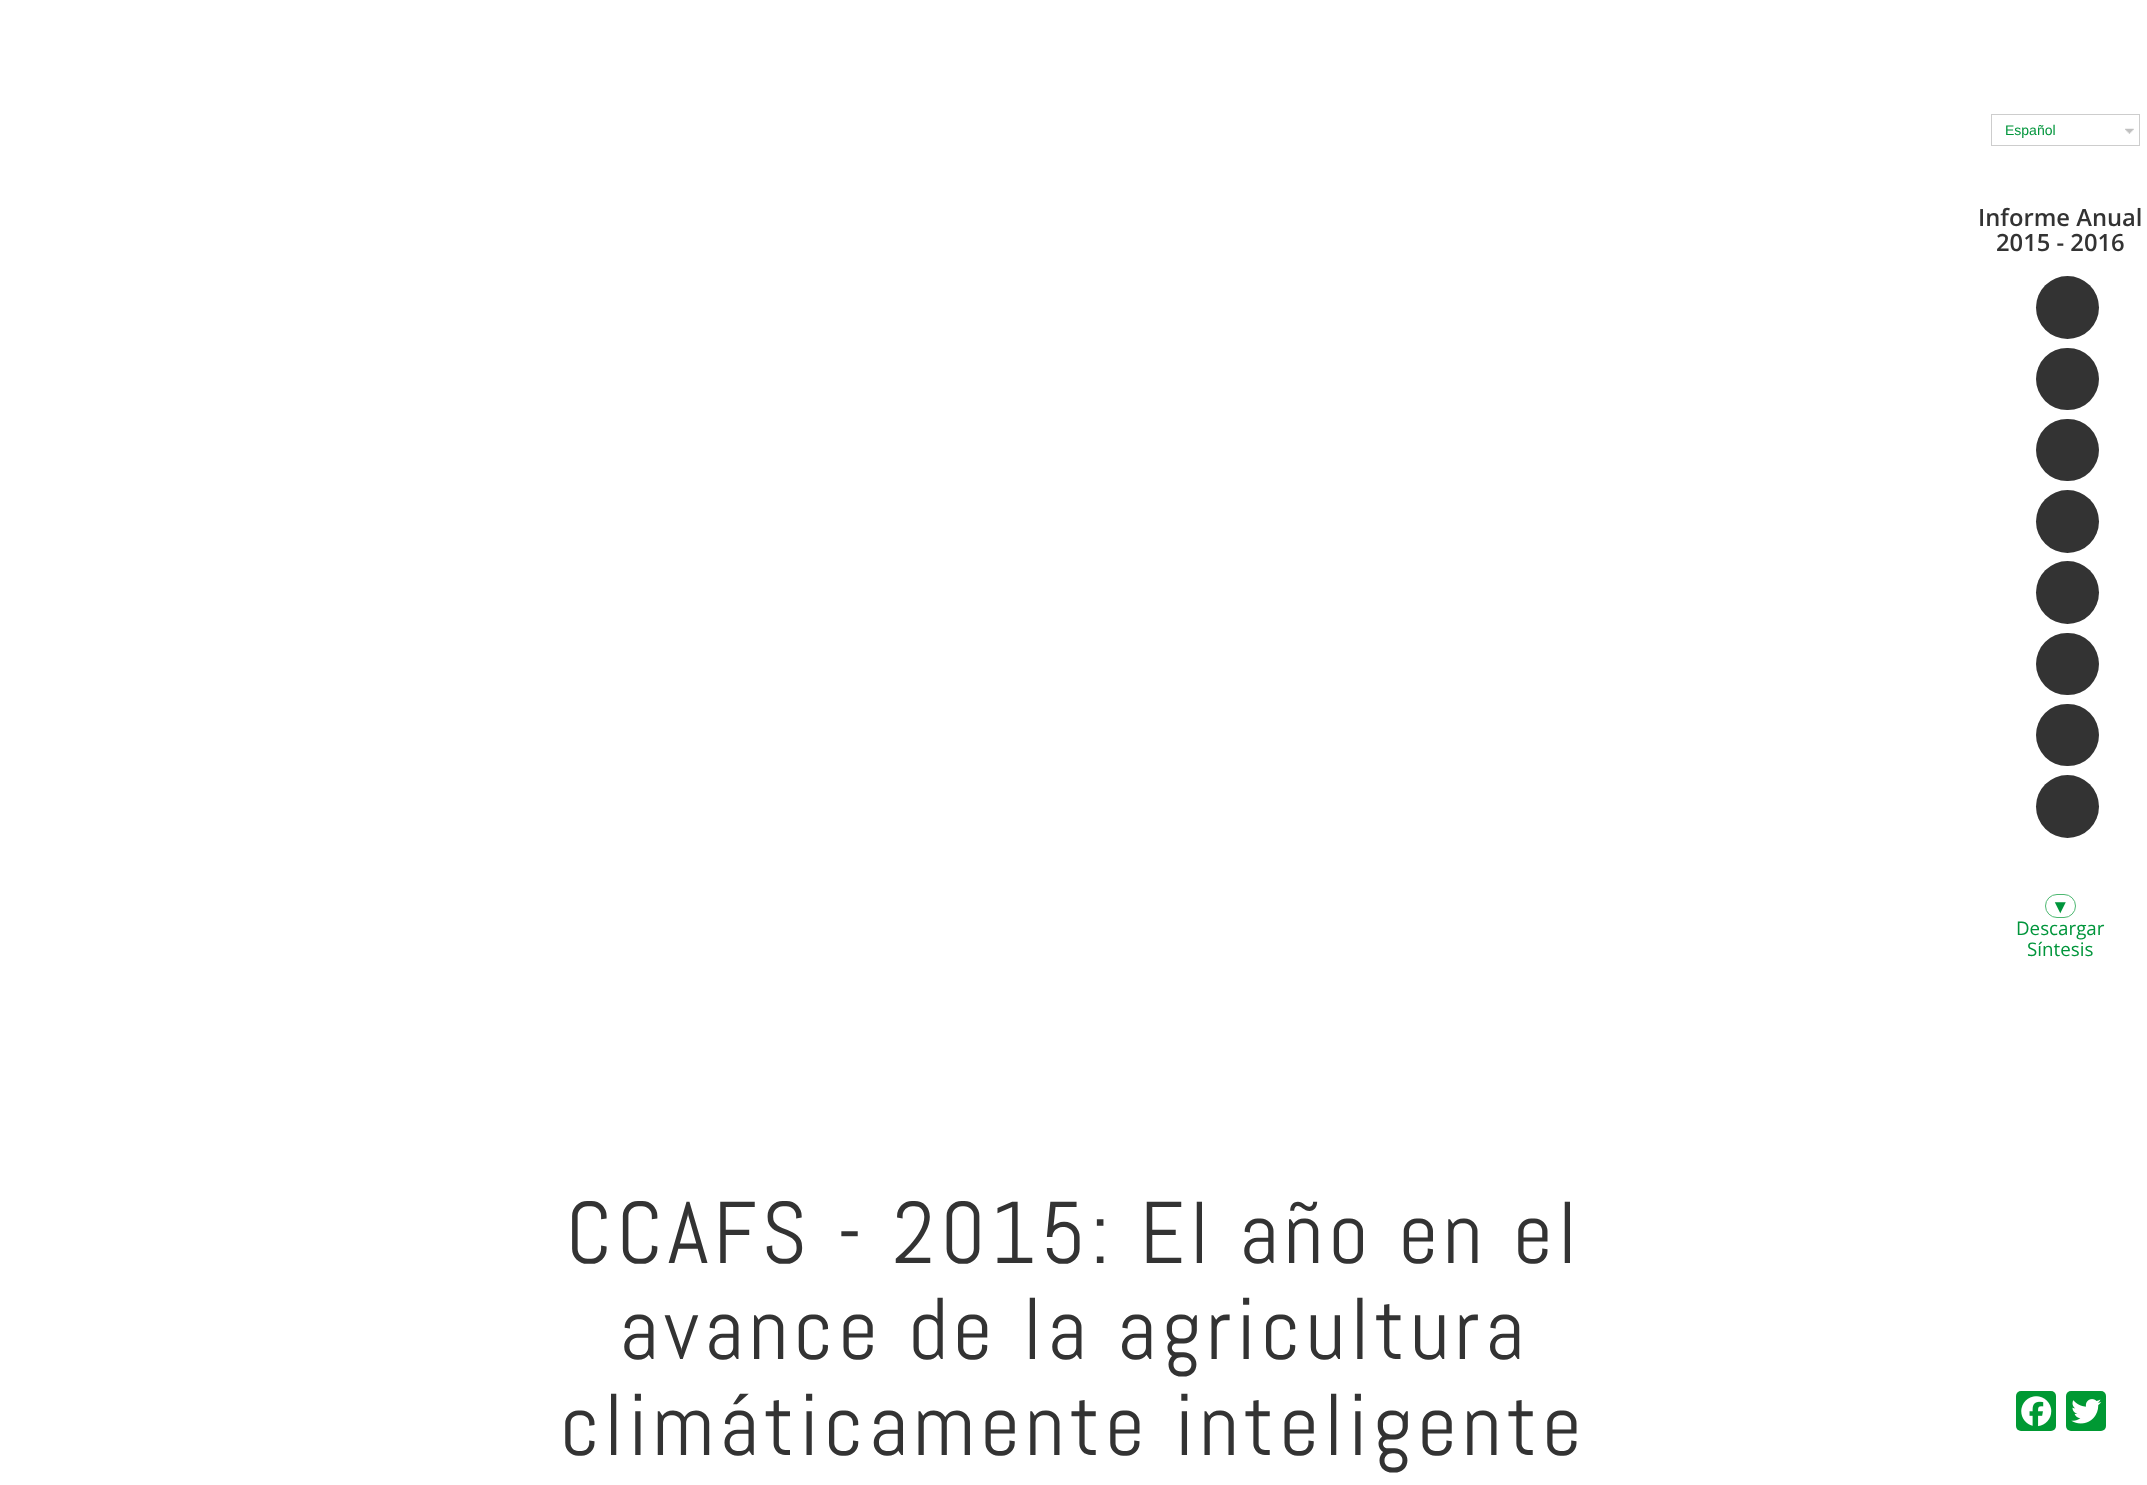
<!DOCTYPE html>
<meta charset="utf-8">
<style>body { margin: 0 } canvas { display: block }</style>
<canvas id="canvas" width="2147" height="1485"></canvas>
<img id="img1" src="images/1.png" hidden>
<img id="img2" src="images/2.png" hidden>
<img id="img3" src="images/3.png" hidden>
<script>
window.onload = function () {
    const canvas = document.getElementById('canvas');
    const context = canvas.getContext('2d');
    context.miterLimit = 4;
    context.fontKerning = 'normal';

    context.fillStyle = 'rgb(255, 255, 255)';
    context.fillRect(0, 0, 2147, 1485);
    context.drawImage(document.getElementById('img1'), 2125, 128, 9, 6);
    context.strokeStyle = 'rgb(205, 205, 205)';
    context.strokeRect(1991.5, 114.5, 148, 31);
    context.fillStyle = 'rgb(51, 51, 51)';
    context.beginPath();
    context.arc(2067.5, 307.5, 31.5, 0, 2 * Math.PI);
    context.fill();
    context.beginPath();
    context.roundRect(2036, 348, 63, 62, 31);
    context.fill();
    context.beginPath();
    context.roundRect(2036, 419, 63, 62, 31);
    context.fill();
    context.beginPath();
    context.arc(2067.5, 521.5, 31.5, 0, 2 * Math.PI);
    context.fill();
    context.beginPath();
    context.arc(2067.5, 592.5, 31.5, 0, 2 * Math.PI);
    context.fill();
    context.beginPath();
    context.roundRect(2036, 633, 63, 62, 31);
    context.fill();
    context.beginPath();
    context.roundRect(2036, 704, 63, 62, 31);
    context.fill();
    context.beginPath();
    context.arc(2067.5, 806.5, 31.5, 0, 2 * Math.PI);
    context.fill();
    context.beginPath();
    context.roundRect(2045.5, 894.5, 30, 23, 11.5);
    context.strokeStyle = 'rgb(77, 184, 113)';
    context.stroke();
    context.fillStyle = 'rgb(0, 153, 51)';
    context.beginPath();
    context.roundRect(2016, 1391, 40, 40, 5);
    context.fill();
    context.drawImage(document.getElementById('img2'), 2021, 1396, 31, 31);
    context.beginPath();
    context.roundRect(2066, 1391, 40, 40, 5);
    context.fill();
    context.drawImage(document.getElementById('img3'), 2071, 1399, 31, 25);
    context.font = '14px Liberation Sans';
    context.fillStyle = 'rgb(0, 149, 59)';
    context.fillText('Español', 2005, 135);
    context.font = '600 23.75px Open Sans';
    context.fillStyle = 'rgb(51, 51, 51)';
    context.fillText('Informe Anual', 1978, 226);
    context.fillText('2015 - 2016', 1996, 251);
    context.font = '18.75px Liberation Sans';
    context.fillStyle = 'rgb(0, 149, 59)';
    context.fillText('▼', 2051, 913);
    context.font = '18.75px Open Sans';
    context.fillText('Descargar', 2016, 935);
    context.fillText('Síntesis', 2027, 956);
    context.letterSpacing = '5px';
    context.font = '87.5px Abel';
    context.fillStyle = 'rgb(51, 51, 51)';
    context.fillText('CCAFS - 2015: El año en el', 566, 1263);
    context.fillText('avance de la agricultura', 619, 1359);
    context.fillText('climáticamente inteligente', 560, 1455);
};
</script>
